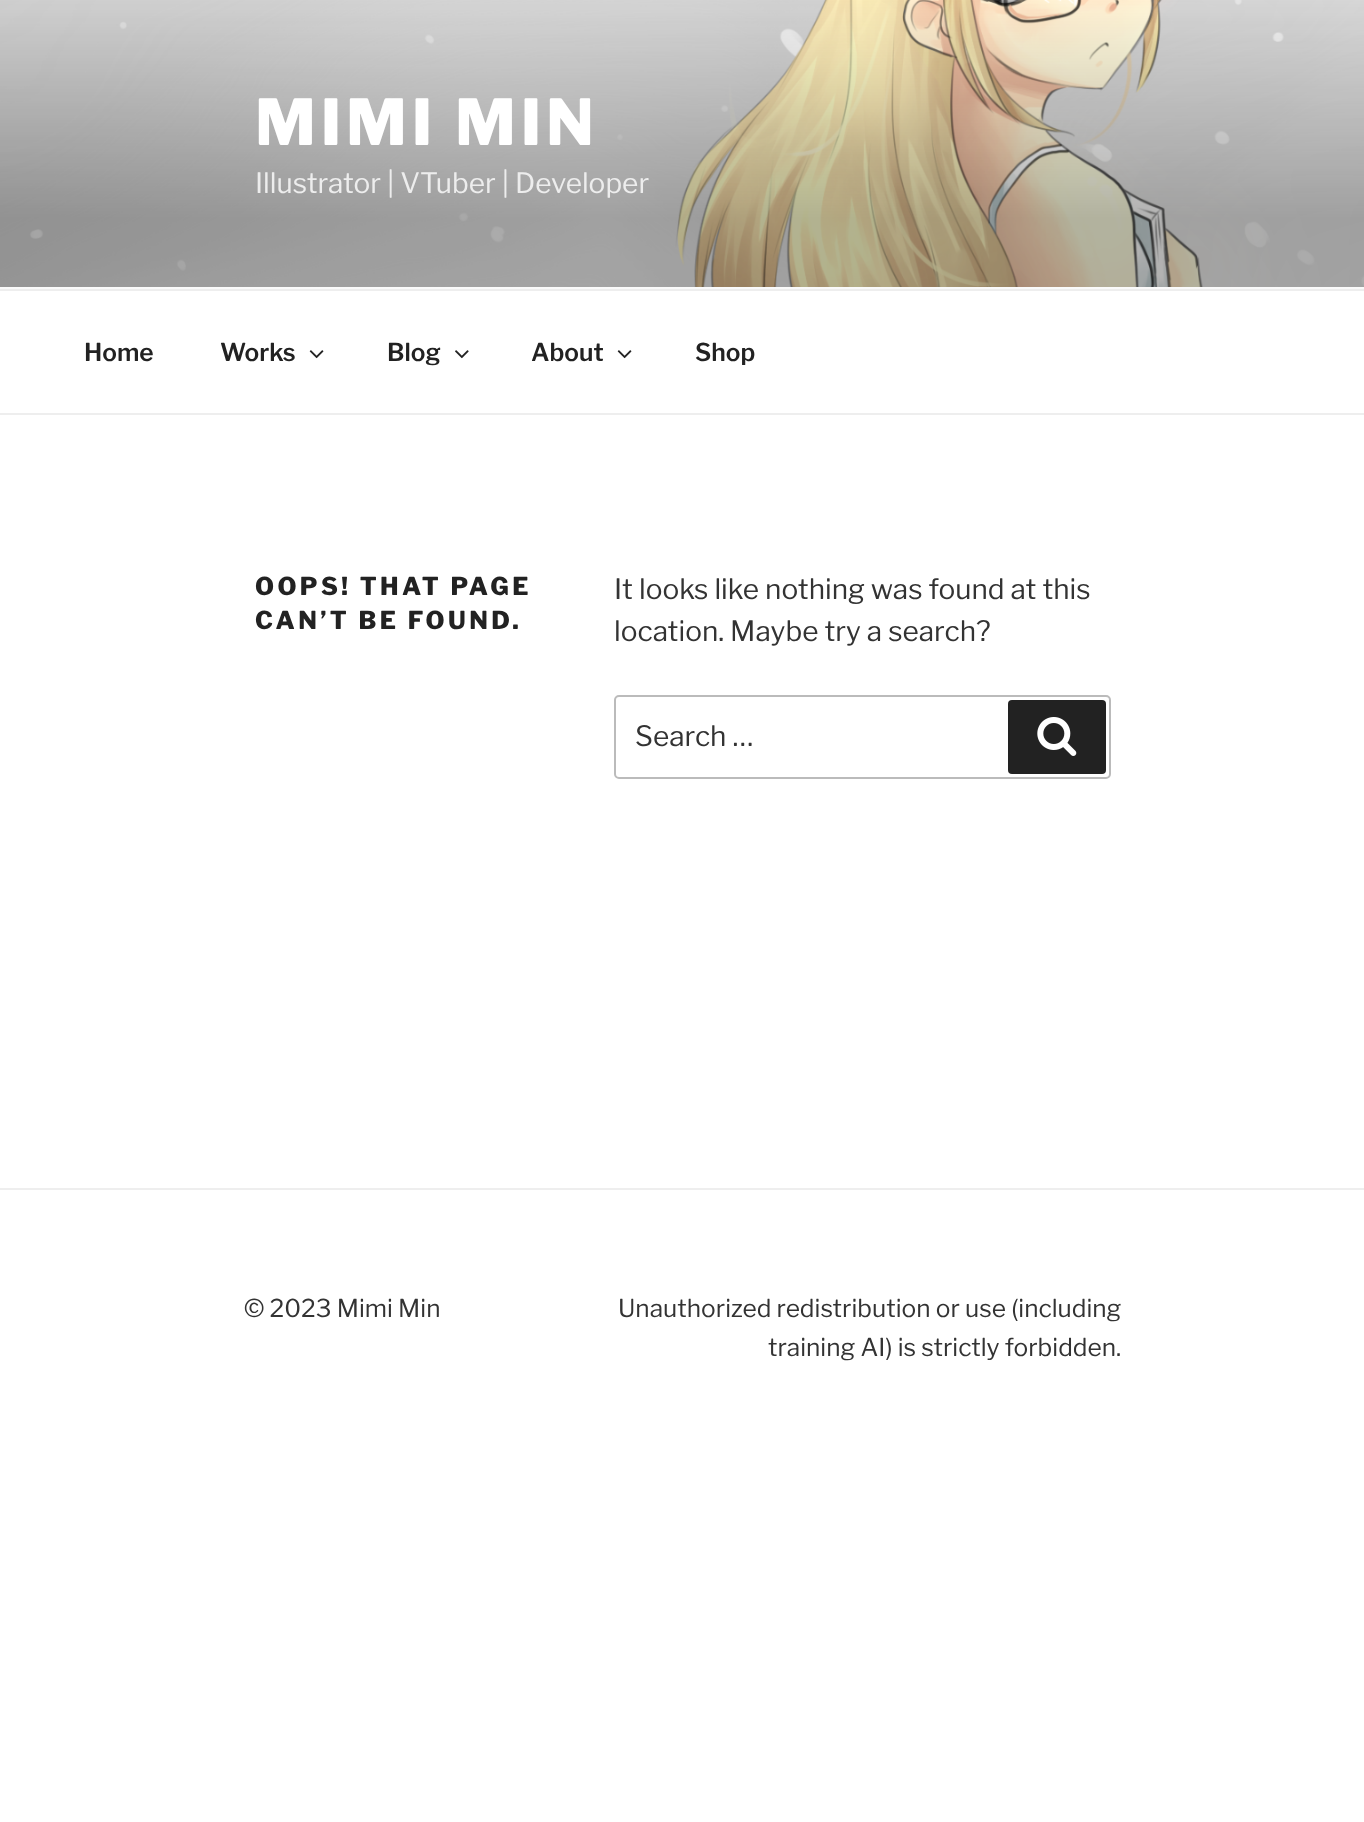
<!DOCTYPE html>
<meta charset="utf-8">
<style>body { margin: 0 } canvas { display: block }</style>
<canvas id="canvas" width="1364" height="1822"></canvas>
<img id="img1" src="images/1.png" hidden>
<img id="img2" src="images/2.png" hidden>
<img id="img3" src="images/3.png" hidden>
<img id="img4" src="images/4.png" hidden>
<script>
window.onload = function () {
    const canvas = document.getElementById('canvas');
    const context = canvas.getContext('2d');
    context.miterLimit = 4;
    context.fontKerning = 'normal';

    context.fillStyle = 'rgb(255, 255, 255)';
    context.fillRect(0, 0, 1364, 1822);
    context.fillStyle = 'rgb(250, 250, 250)';
    context.fillRect(0, 287, 1364, 2);
    context.drawImage(document.getElementById('img1'), 0, 0, 1364, 287);
    context.fillStyle = 'rgb(238, 238, 238)';
    context.fillRect(0, 289, 1364, 2);
    context.fillRect(0, 413, 1364, 2);
    context.drawImage(document.getElementById('img2'), 309, 350, 15, 9);
    context.drawImage(document.getElementById('img3'), 455, 350, 14, 9);
    context.drawImage(document.getElementById('img2'), 617, 350, 15, 9);
    context.beginPath();
    context.roundRect(615, 696, 495, 82, 4);
    context.strokeStyle = 'rgb(187, 187, 187)';
    context.lineWidth = 2;
    context.stroke();
    context.fillStyle = 'rgb(34, 34, 34)';
    context.beginPath();
    context.roundRect(1008, 700, 98, 74, 4);
    context.fill();
    context.drawImage(document.getElementById('img4'), 1037, 717, 40, 39);
    context.fillStyle = 'rgb(238, 238, 238)';
    context.fillRect(0, 1188, 1364, 2);
    context.letterSpacing = '5px';
    context.font = '100 63px Libre Franklin';
    context.fillStyle = 'rgb(255, 255, 255)';
    context.fillText('MIMI MIN', 255, 145);
    context.letterSpacing = '0px';
    context.font = '100 28px "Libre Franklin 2"';
    context.fillStyle = 'rgb(237, 237, 237)';
    context.fillText('Illustrator | VTuber | Developer', 255, 193);
    context.font = '100 24.5px "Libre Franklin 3"';
    context.fillStyle = 'rgb(34, 34, 34)';
    context.fillText('Home', 84, 361);
    context.fillText('Works', 220, 361);
    context.fillText('Blog', 387, 361);
    context.fillText('About', 531, 361);
    context.fillText('Shop', 695, 361);
    context.letterSpacing = '3.4px';
    context.font = '100 24.5px Libre Franklin';
    context.fillText('OOPS! THAT PAGE', 255, 595);
    context.fillText('CAN’T BE FOUND.', 255, 629);
    context.letterSpacing = '0px';
    context.font = '100 28px "Libre Franklin 2"';
    context.fillStyle = 'rgb(51, 51, 51)';
    context.fillText('It looks like nothing was found at this', 614, 599);
    context.fillText('location. Maybe try a search?', 614, 641);
    context.fillText('Search …', 635, 746);
    context.font = '100 24.5px "Libre Franklin 2"';
    context.fillText('© 2023 Mimi Min', 244, 1317);
    context.fillText('Unauthorized redistribution or use (including', 618, 1317);
    context.fillText('training AI) is strictly forbidden.', 768, 1356);
};
</script>
